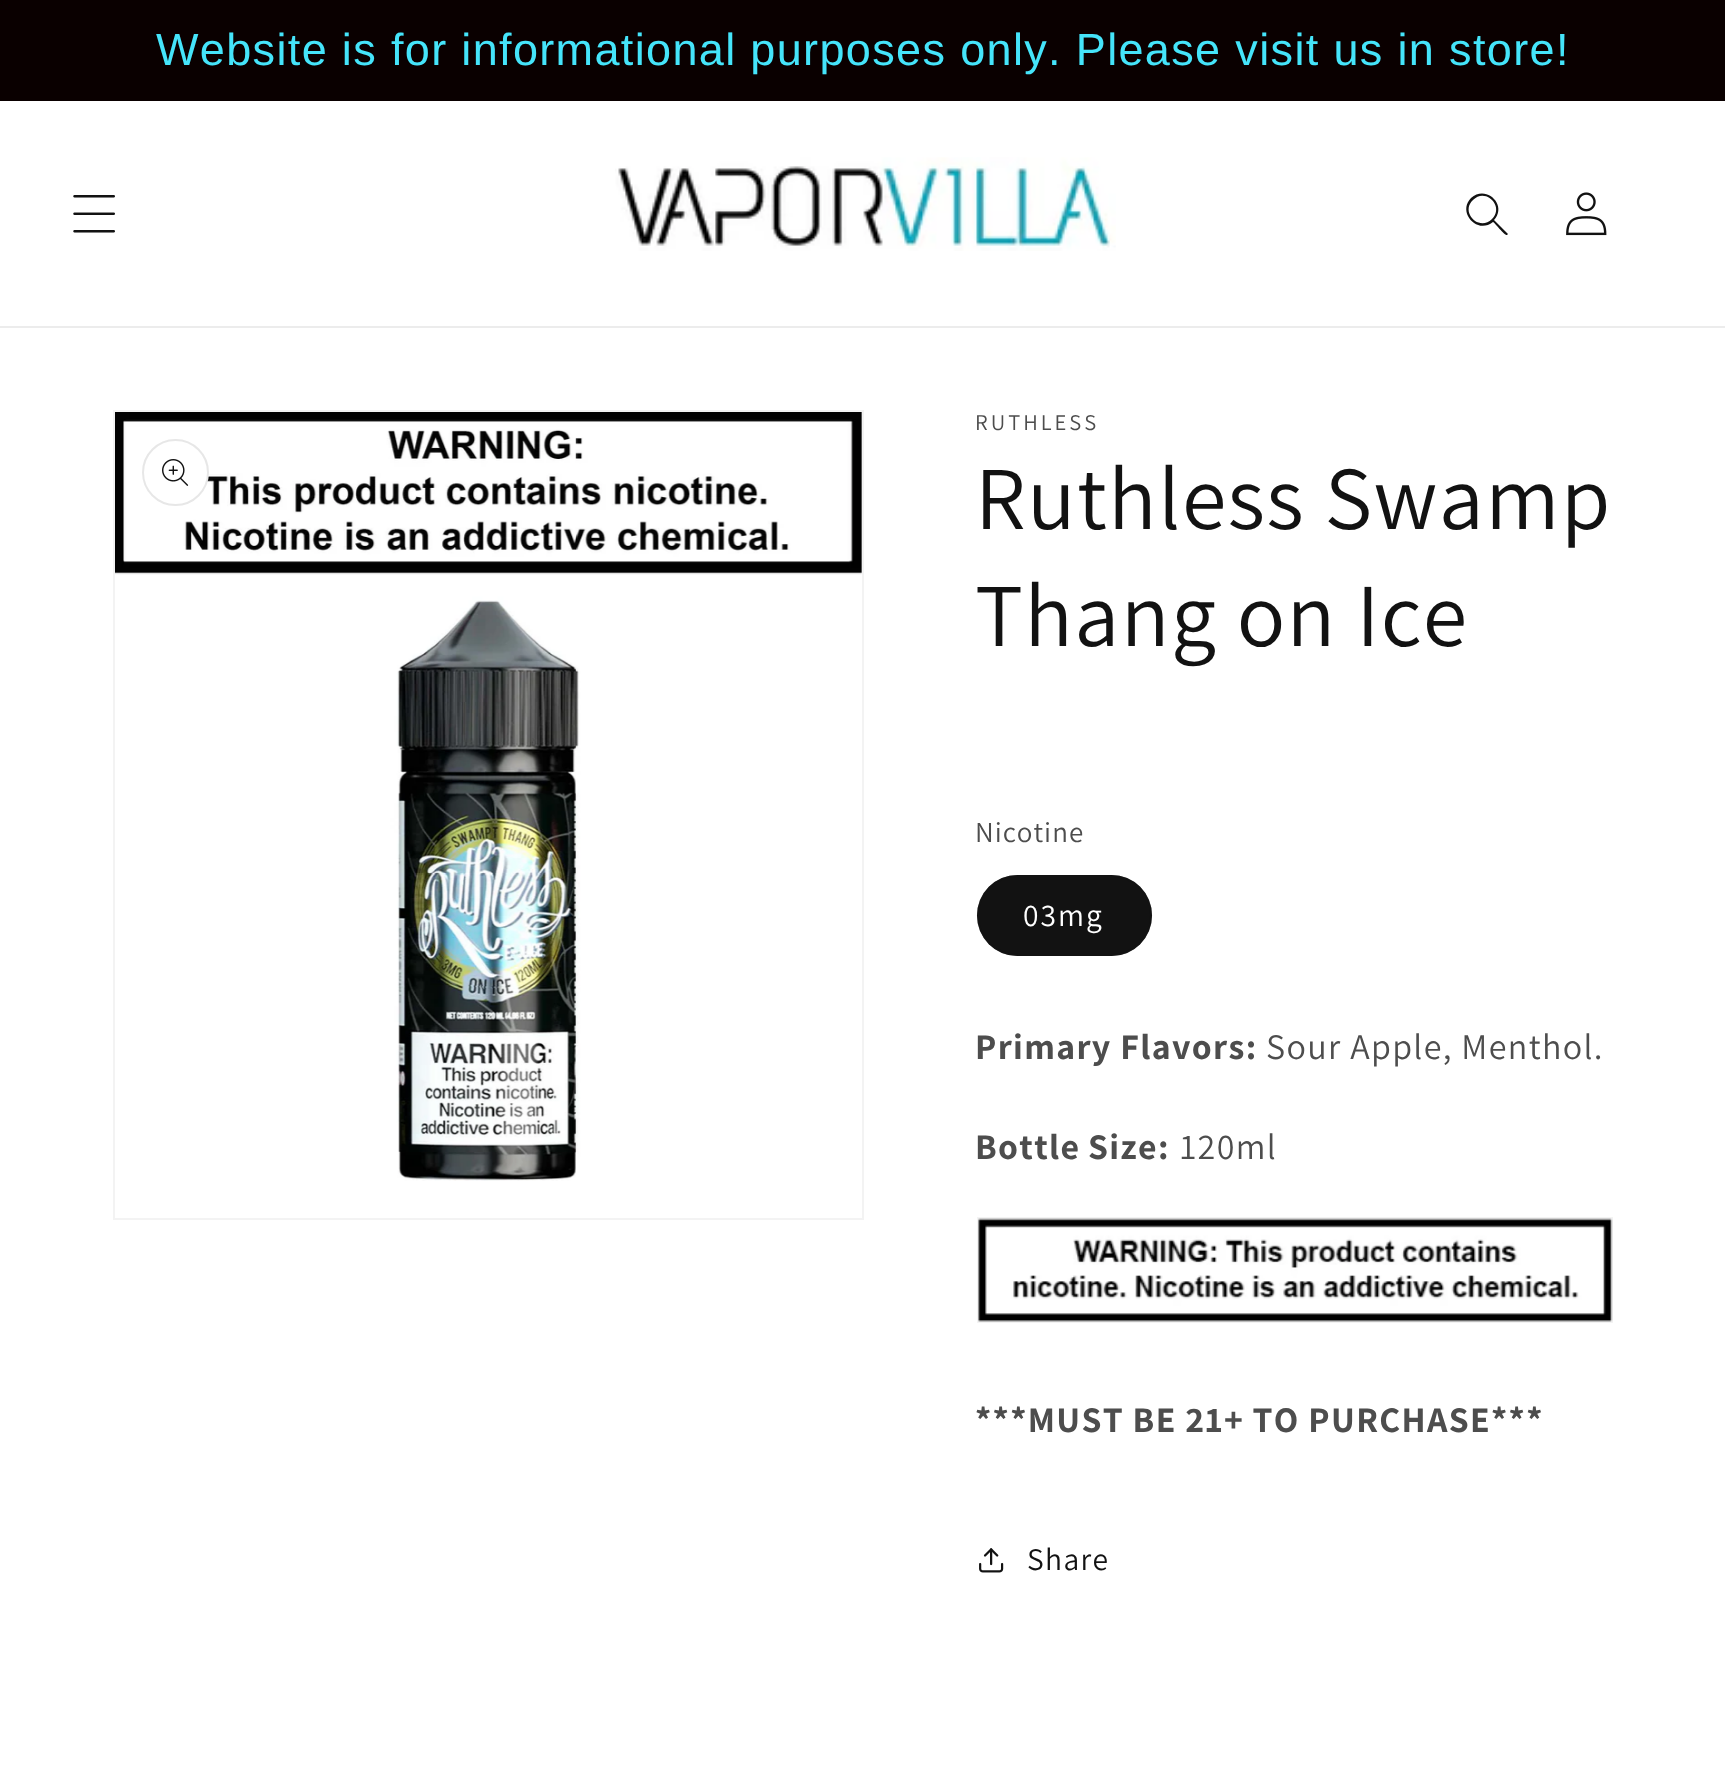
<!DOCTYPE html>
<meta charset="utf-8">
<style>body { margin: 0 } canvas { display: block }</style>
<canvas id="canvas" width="1725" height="1766"></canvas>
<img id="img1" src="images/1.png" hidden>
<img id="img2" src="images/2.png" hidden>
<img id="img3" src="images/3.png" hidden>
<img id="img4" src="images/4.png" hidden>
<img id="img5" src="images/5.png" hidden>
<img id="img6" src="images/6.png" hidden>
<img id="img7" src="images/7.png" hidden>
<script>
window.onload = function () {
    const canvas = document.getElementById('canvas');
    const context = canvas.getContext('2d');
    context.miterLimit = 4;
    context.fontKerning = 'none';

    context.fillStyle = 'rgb(255, 255, 255)';
    context.fillRect(0, 0, 1725, 1766);
    context.fillStyle = 'rgb(10, 0, 0)';
    context.fillRect(0, 0, 1725, 101);
    context.fillStyle = 'rgb(236, 236, 236)';
    context.fillRect(0, 326, 1725, 2);
    context.drawImage(document.getElementById('img1'), 73, 195, 42, 38);
    context.drawImage(document.getElementById('img2'), 615, 157, 501, 94);
    context.fillStyle = 'rgb(18, 18, 18)';
    context.beginPath();
    context.moveTo(1492, 219);
    context.bezierCurveTo(1479, 232, 1460, 212, 1473, 200);
    context.bezierCurveTo(1485, 187, 1505, 206, 1492, 219);
    context.closePath();
    context.moveTo(1493, 222);
    context.bezierCurveTo(1477, 235, 1457, 212, 1471, 198);
    context.bezierCurveTo(1486, 184, 1508, 205, 1494, 220);
    context.lineTo(1508, 234);
    context.lineTo(1507, 235);
    context.bezierCurveTo(1505, 236, 1495, 223, 1493, 222);
    context.closePath();
    context.fill('evenodd');
    context.drawImage(document.getElementById('img3'), 1566, 192, 41, 44);
    context.strokeStyle = 'rgb(243, 243, 243)';
    context.lineWidth = 2;
    context.strokeRect(114, 411, 749, 808);
    context.drawImage(document.getElementById('img4'), 115, 412, 747, 769);
    context.fillStyle = 'rgb(255, 255, 255)';
    context.beginPath();
    context.arc(175.5, 472.5, 33.5, 0, 2 * Math.PI);
    context.fill();
    context.beginPath();
    context.arc(175.5, 472.5, 32.5, 0, 2 * Math.PI);
    context.strokeStyle = 'rgba(18, 18, 18, 0.1)';
    context.stroke();
    context.drawImage(document.getElementById('img5'), 162, 459, 27, 27);
    context.fillStyle = 'rgb(18, 18, 18)';
    context.beginPath();
    context.roundRect(977, 875, 175, 81, 40.5);
    context.fill();
    context.beginPath();
    context.roundRect(978, 876, 173, 79, 39.5);
    context.strokeStyle = 'rgba(18, 18, 18, 0.55)';
    context.stroke();
    context.strokeStyle = 'rgb(243, 243, 243)';
    context.strokeRect(978, 1218, 634, 104);
    context.drawImage(document.getElementById('img6'), 978, 1218, 635, 104);
    context.drawImage(document.getElementById('img7'), 979, 1548, 25, 25);
    context.letterSpacing = '1.35px';
    context.font = '45px Liberation Sans';
    context.fillStyle = 'rgb(69, 228, 250)';
    context.fillText('Website is for informational purposes only. Please visit us in store!', 156, 65);
    context.letterSpacing = '3px';
    context.font = '22.5px Assistant';
    context.fillStyle = 'rgb(77, 77, 77)';
    context.fillText('RUTHLESS', 975, 430);
    context.letterSpacing = '1.35px';
    context.font = '90px Assistant';
    context.fillStyle = 'rgb(18, 18, 18)';
    context.fillText('Ruthless Swamp', 975, 529);
    context.fillText('Thang on Ice', 975, 646);
    context.letterSpacing = '1px';
    context.font = '29px Assistant';
    context.fillStyle = 'rgb(77, 77, 77)';
    context.fillText('Nicotine', 975, 842);
    context.letterSpacing = '2px';
    context.font = '31.5px Assistant';
    context.fillStyle = 'rgb(255, 255, 255)';
    context.fillText('03mg', 1023, 926);
    context.letterSpacing = '1.35px';
    context.font = 'bold 36px Assistant';
    context.fillStyle = 'rgb(77, 77, 77)';
    context.fillText('Primary Flavors:', 975, 1059);
    context.font = '36px Assistant';
    context.fillText('Sour Apple, Menthol.', 1266, 1059);
    context.wordSpacing = '-1px';
    context.font = 'bold 36px Assistant';
    context.fillText('Bottle Size:', 975, 1159);
    context.wordSpacing = '0px';
    context.font = '36px Assistant';
    context.fillText('120ml', 1180, 1159);
    context.font = 'bold 36px Assistant';
    context.fillText('***MUST BE 21+ TO PURCHASE***', 975, 1432);
    context.font = '31.5px Assistant';
    context.fillStyle = 'rgb(18, 18, 18)';
    context.fillText('Share', 1027, 1570);
};
</script>
